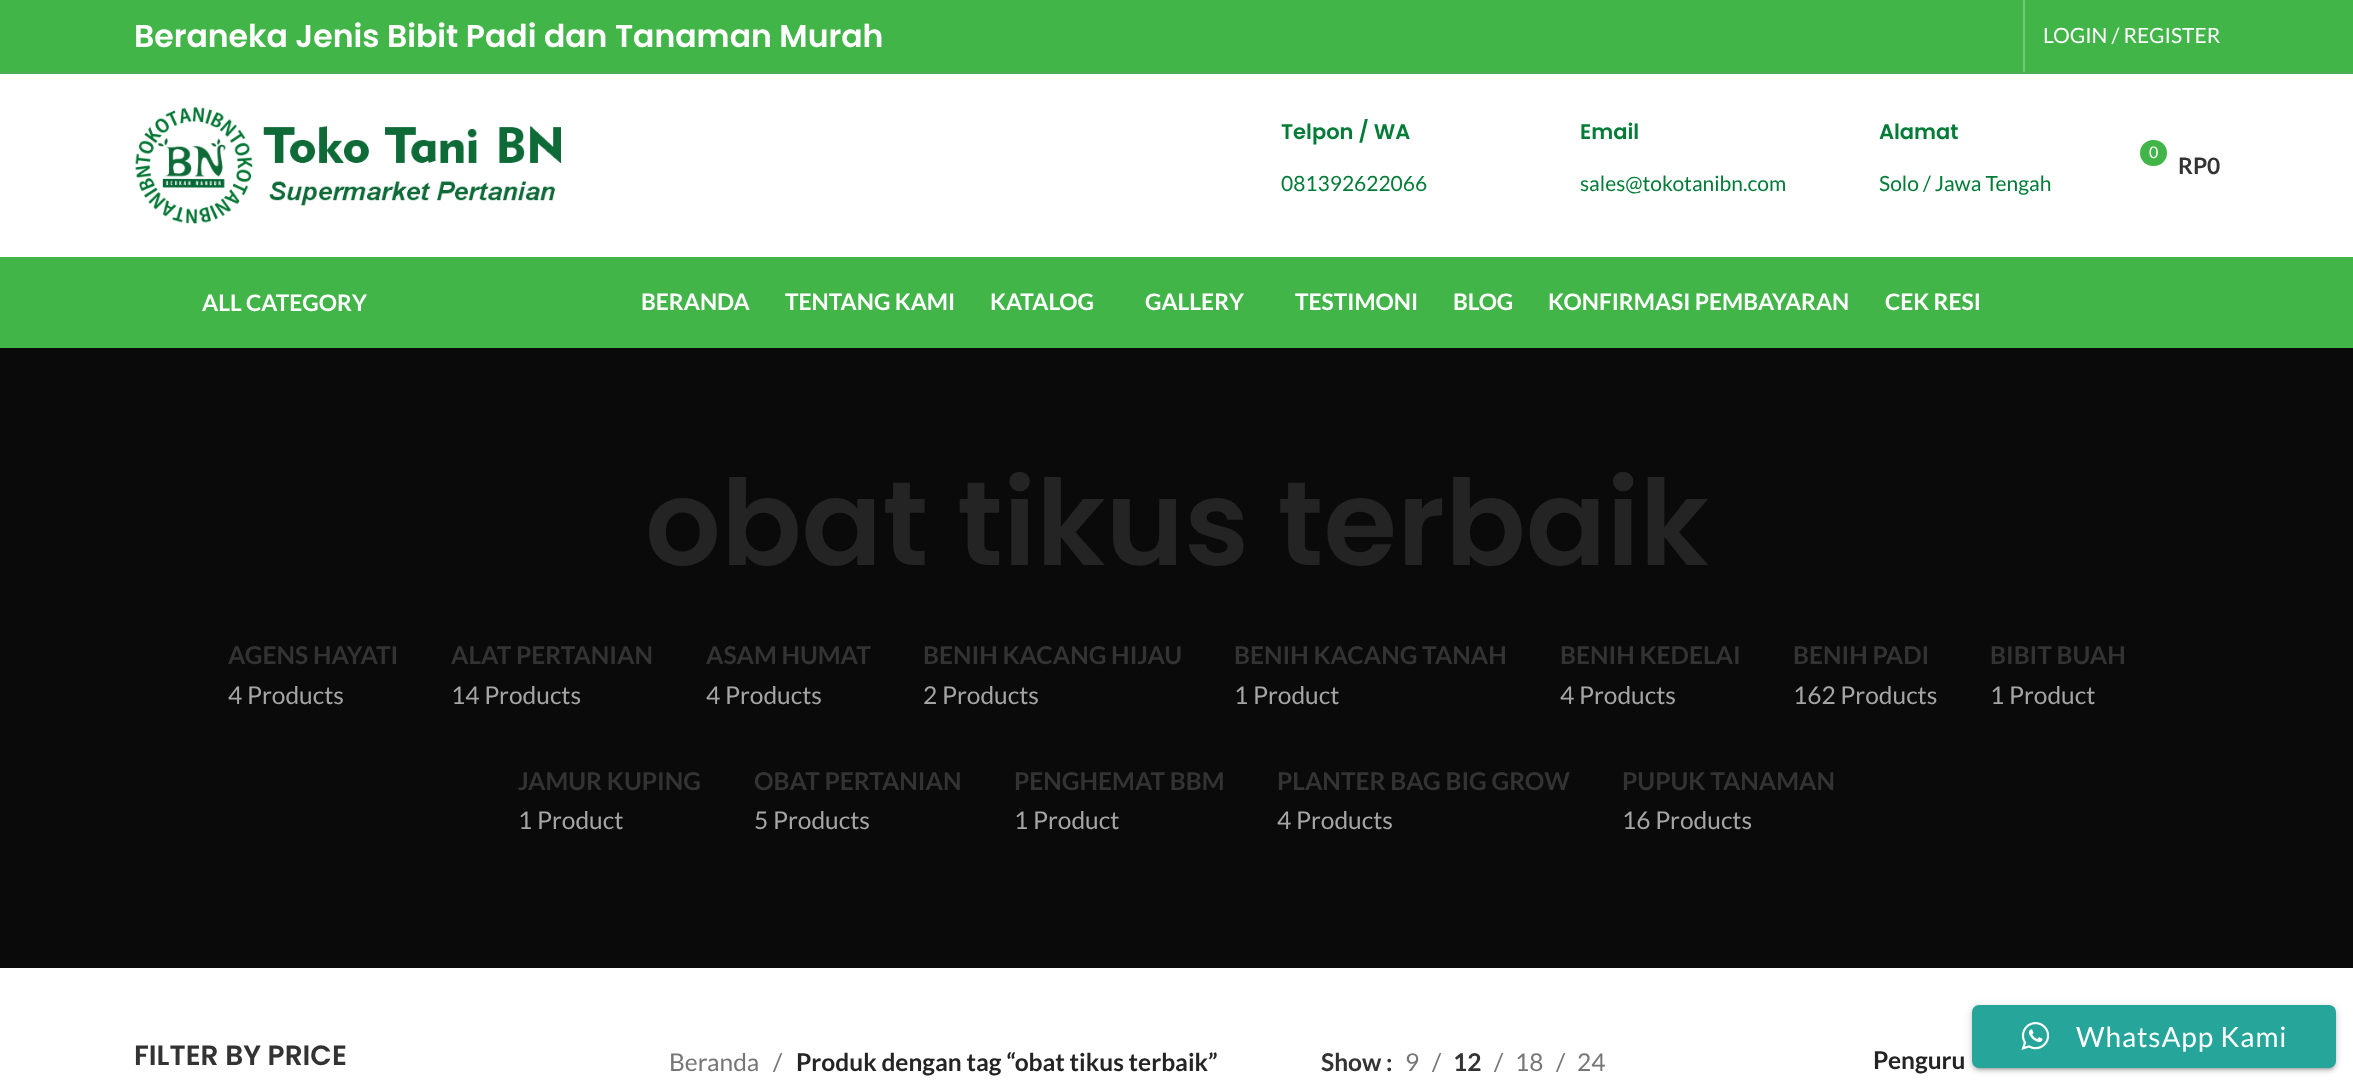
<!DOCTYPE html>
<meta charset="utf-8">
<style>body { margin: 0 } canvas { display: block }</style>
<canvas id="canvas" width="2353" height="1084"></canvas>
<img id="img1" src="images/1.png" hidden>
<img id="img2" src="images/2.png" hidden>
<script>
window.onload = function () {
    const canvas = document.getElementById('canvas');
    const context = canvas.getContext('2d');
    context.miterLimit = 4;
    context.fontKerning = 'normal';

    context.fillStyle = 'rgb(255, 255, 255)';
    context.fillRect(0, 0, 2353, 1084);
    context.fillStyle = 'rgb(66, 181, 73)';
    context.fillRect(0, 0, 2353, 72);
    context.fillStyle = 'rgb(79, 171, 84)';
    context.fillRect(0, 72, 2353, 2);
    context.fillStyle = 'rgb(113, 200, 119)';
    context.fillRect(2023, 0, 2, 72);
    context.drawImage(document.getElementById('img1'), 135, 106, 426, 118);
    context.fillStyle = 'rgb(66, 181, 73)';
    context.beginPath();
    context.roundRect(2140, 140, 27, 26, 13);
    context.fill();
    context.fillRect(0, 257, 2353, 91);
    context.fillStyle = 'rgb(10, 10, 10)';
    context.fillRect(0, 348, 2353, 620);
    context.fillStyle = 'rgba(0, 0, 0, 0.2)';
    context.filter = 'blur(1px)';
    context.beginPath();
    context.roundRect(1976, 1013, 357, 56, 4);
    context.fill();
    context.filter = 'none';
    context.fillStyle = 'rgba(0, 0, 0, 0.12)';
    context.filter = 'blur(4.5px)';
    context.beginPath();
    context.roundRect(1972, 1006, 364, 63, 7);
    context.fill();
    context.filter = 'none';
    context.fillStyle = 'rgba(0, 0, 0, 0.14)';
    context.filter = 'blur(2px)';
    context.beginPath();
    context.roundRect(1972, 1008, 364, 63, 7);
    context.fill();
    context.filter = 'none';
    context.fillStyle = 'rgb(38, 166, 154)';
    context.beginPath();
    context.roundRect(1972, 1005, 364, 63, 7);
    context.fill();
    context.drawImage(document.getElementById('img2'), 2021, 1022, 28, 28);
    context.font = '600 31.5px Poppins';
    context.fillStyle = 'rgb(255, 255, 255)';
    context.fillText('Beraneka Jenis Bibit Padi dan Tanaman Murah', 134, 47);
    context.font = '21px Lato';
    context.fillText('LOGIN / REGISTER', 2043, 43);
    context.font = '600 21px Poppins';
    context.fillStyle = 'rgb(3, 124, 55)';
    context.fillText('Telpon / WA', 1281, 139);
    context.font = '21px Lato';
    context.fillText('081392622066', 1281, 191);
    context.font = '600 21px Poppins';
    context.fillText('Email', 1580, 139);
    context.font = '21px Lato';
    context.fillText('sales@tokotanibn.com', 1580, 191);
    context.font = '600 21px Poppins';
    context.fillText('Alamat', 1879, 139);
    context.font = '21px Lato';
    context.fillText('Solo / Jawa Tengah', 1879, 191);
    context.font = '16px Lato';
    context.fillStyle = 'rgb(255, 255, 255)';
    context.fillText('0', 2149, 158);
    context.font = 'bold 22.75px Lato';
    context.fillStyle = 'rgb(51, 51, 51)';
    context.fillText('RP0', 2178, 174);
    context.fillStyle = 'rgb(255, 255, 255)';
    context.fillText('ALL CATEGORY', 202, 311);
    context.fillText('BERANDA', 641, 310);
    context.fillText('TENTANG KAMI', 785, 310);
    context.fillText('KATALOG', 990, 310);
    context.fillText('GALLERY', 1145, 310);
    context.fillText('TESTIMONI', 1295, 310);
    context.fillText('BLOG', 1453, 310);
    context.fillText('KONFIRMASI PEMBAYARAN', 1548, 310);
    context.fillText('CEK RESI', 1885, 310);
    context.font = '600 119px Poppins';
    context.fillStyle = 'rgb(36, 36, 36)';
    context.fillText('obat tikus terbaik', 645, 565);
    context.font = 'bold 24.5px Lato';
    context.fillStyle = 'rgb(51, 51, 51)';
    context.fillText('AGENS HAYATI', 228, 664);
    context.font = '24.5px Lato';
    context.fillStyle = 'rgb(165, 165, 165)';
    context.fillText('4 Products', 228, 704);
    context.font = 'bold 24.5px Lato';
    context.fillStyle = 'rgb(51, 51, 51)';
    context.fillText('ALAT PERTANIAN', 451, 664);
    context.font = '24.5px Lato';
    context.fillStyle = 'rgb(165, 165, 165)';
    context.fillText('14 Products', 451, 704);
    context.font = 'bold 24.5px Lato';
    context.fillStyle = 'rgb(51, 51, 51)';
    context.fillText('ASAM HUMAT', 706, 664);
    context.font = '24.5px Lato';
    context.fillStyle = 'rgb(165, 165, 165)';
    context.fillText('4 Products', 706, 704);
    context.font = 'bold 24.5px Lato';
    context.fillStyle = 'rgb(51, 51, 51)';
    context.fillText('BENIH KACANG HIJAU', 923, 664);
    context.font = '24.5px Lato';
    context.fillStyle = 'rgb(165, 165, 165)';
    context.fillText('2 Products', 923, 704);
    context.font = 'bold 24.5px Lato';
    context.fillStyle = 'rgb(51, 51, 51)';
    context.fillText('BENIH KACANG TANAH', 1234, 664);
    context.font = '24.5px Lato';
    context.fillStyle = 'rgb(165, 165, 165)';
    context.fillText('1 Product', 1234, 704);
    context.font = 'bold 24.5px Lato';
    context.fillStyle = 'rgb(51, 51, 51)';
    context.fillText('BENIH KEDELAI', 1560, 664);
    context.font = '24.5px Lato';
    context.fillStyle = 'rgb(165, 165, 165)';
    context.fillText('4 Products', 1560, 704);
    context.font = 'bold 24.5px Lato';
    context.fillStyle = 'rgb(51, 51, 51)';
    context.fillText('BENIH PADI', 1793, 664);
    context.font = '24.5px Lato';
    context.fillStyle = 'rgb(165, 165, 165)';
    context.fillText('162 Products', 1793, 704);
    context.font = 'bold 24.5px Lato';
    context.fillStyle = 'rgb(51, 51, 51)';
    context.fillText('BIBIT BUAH', 1990, 664);
    context.font = '24.5px Lato';
    context.fillStyle = 'rgb(165, 165, 165)';
    context.fillText('1 Product', 1990, 704);
    context.font = 'bold 24.5px Lato';
    context.fillStyle = 'rgb(51, 51, 51)';
    context.fillText('JAMUR KUPING', 518, 790);
    context.font = '24.5px Lato';
    context.fillStyle = 'rgb(165, 165, 165)';
    context.fillText('1 Product', 518, 829);
    context.font = 'bold 24.5px Lato';
    context.fillStyle = 'rgb(51, 51, 51)';
    context.fillText('OBAT PERTANIAN', 754, 790);
    context.font = '24.5px Lato';
    context.fillStyle = 'rgb(165, 165, 165)';
    context.fillText('5 Products', 754, 829);
    context.font = 'bold 24.5px Lato';
    context.fillStyle = 'rgb(51, 51, 51)';
    context.fillText('PENGHEMAT BBM', 1014, 790);
    context.font = '24.5px Lato';
    context.fillStyle = 'rgb(165, 165, 165)';
    context.fillText('1 Product', 1014, 829);
    context.font = 'bold 24.5px Lato';
    context.fillStyle = 'rgb(51, 51, 51)';
    context.fillText('PLANTER BAG BIG GROW', 1277, 790);
    context.font = '24.5px Lato';
    context.fillStyle = 'rgb(165, 165, 165)';
    context.fillText('4 Products', 1277, 829);
    context.font = 'bold 24.5px Lato';
    context.fillStyle = 'rgb(51, 51, 51)';
    context.fillText('PUPUK TANAMAN', 1622, 790);
    context.font = '24.5px Lato';
    context.fillStyle = 'rgb(165, 165, 165)';
    context.fillText('16 Products', 1622, 829);
    context.font = '600 28px Poppins';
    context.fillStyle = 'rgb(51, 51, 51)';
    context.fillText('FILTER BY PRICE', 134, 1065);
    context.font = '24.5px Lato';
    context.fillStyle = 'rgb(118, 118, 118)';
    context.fillText('Beranda', 669, 1071);
    context.fillText('/', 773, 1071);
    context.font = 'bold 24.5px Lato';
    context.fillStyle = 'rgb(36, 36, 36)';
    context.fillText('Produk dengan tag “obat tikus terbaik”', 796, 1071);
    context.fillStyle = 'rgb(51, 51, 51)';
    context.fillText('Show :', 1321, 1071);
    context.font = '24.5px Lato';
    context.fillStyle = 'rgb(118, 118, 118)';
    context.fillText('9', 1405, 1071);
    context.fillText('/', 1432, 1071);
    context.font = 'bold 24.5px Lato';
    context.fillStyle = 'rgb(51, 51, 51)';
    context.fillText('12', 1453, 1071);
    context.font = '24.5px Lato';
    context.fillStyle = 'rgb(118, 118, 118)';
    context.fillText('/', 1494, 1071);
    context.fillText('18', 1515, 1071);
    context.fillText('/', 1556, 1071);
    context.fillText('24', 1577, 1071);
    context.font = 'bold 24.5px Lato';
    context.fillStyle = 'rgb(36, 36, 36)';
    context.fillText('Penguru', 1873, 1069);
    context.letterSpacing = '0.9px';
    context.font = '28px Lato';
    context.fillStyle = 'rgb(255, 255, 255)';
    context.fillText('WhatsApp Kami', 2076, 1047);
};
</script>
